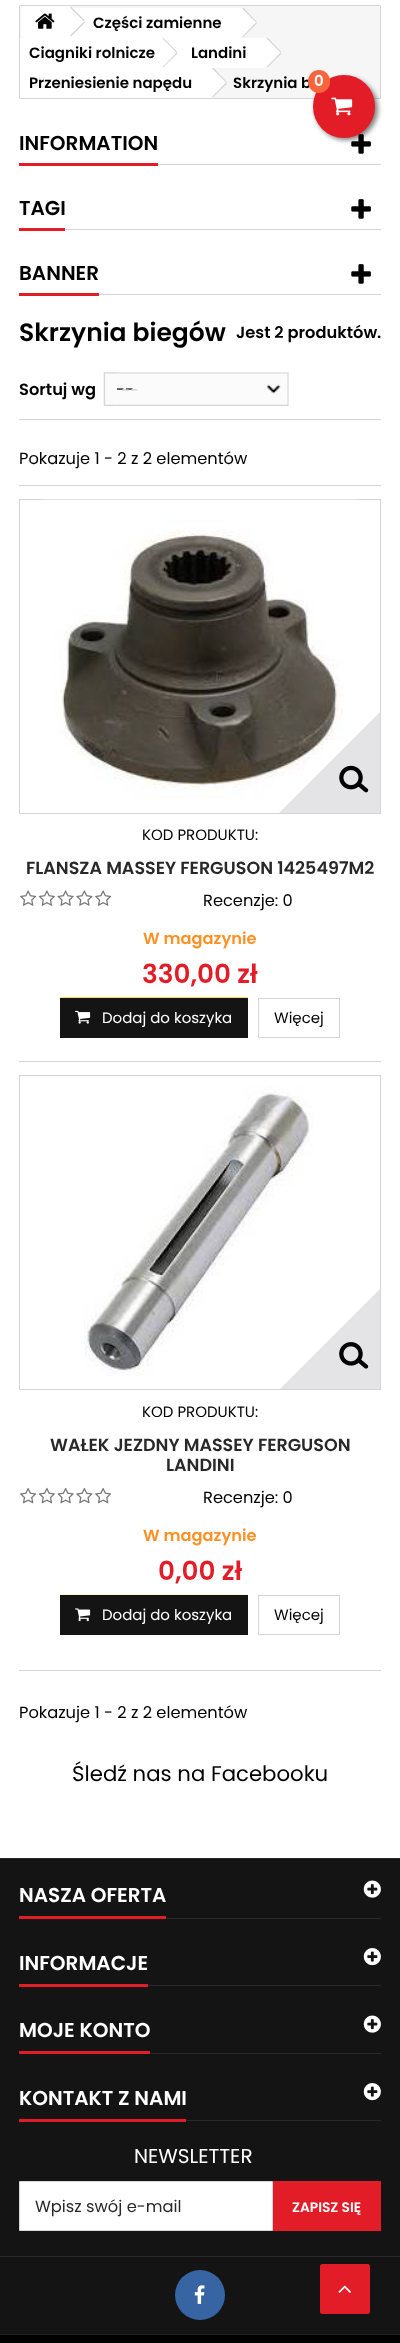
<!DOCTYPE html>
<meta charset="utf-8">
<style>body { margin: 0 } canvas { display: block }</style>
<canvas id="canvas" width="400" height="2343"></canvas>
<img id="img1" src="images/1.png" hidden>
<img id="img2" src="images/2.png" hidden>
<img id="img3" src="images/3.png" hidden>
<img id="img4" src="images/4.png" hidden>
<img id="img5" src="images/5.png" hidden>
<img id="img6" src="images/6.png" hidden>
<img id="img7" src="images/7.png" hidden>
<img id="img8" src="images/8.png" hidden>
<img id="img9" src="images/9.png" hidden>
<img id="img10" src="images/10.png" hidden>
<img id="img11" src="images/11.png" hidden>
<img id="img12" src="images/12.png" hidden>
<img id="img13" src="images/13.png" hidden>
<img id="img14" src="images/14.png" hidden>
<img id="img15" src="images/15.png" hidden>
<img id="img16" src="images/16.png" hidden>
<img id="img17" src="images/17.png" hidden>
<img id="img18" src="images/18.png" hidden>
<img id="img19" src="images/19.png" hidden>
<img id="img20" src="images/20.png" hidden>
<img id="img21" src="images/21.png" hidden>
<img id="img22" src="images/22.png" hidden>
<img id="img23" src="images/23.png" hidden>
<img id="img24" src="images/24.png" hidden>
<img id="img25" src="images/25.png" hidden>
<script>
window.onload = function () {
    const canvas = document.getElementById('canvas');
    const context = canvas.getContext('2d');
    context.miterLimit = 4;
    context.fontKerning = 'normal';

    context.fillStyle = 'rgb(255, 255, 255)';
    context.fillRect(0, 0, 400, 2343);
    context.fillStyle = 'rgb(246, 246, 246)';
    context.beginPath();
    context.rect(19.5, 5.5, 361, 93);
    context.fill();
    context.strokeStyle = 'rgb(214, 212, 212)';
    context.stroke();
    context.fillStyle = 'rgb(255, 255, 255)';
    context.beginPath();
    context.roundRect(21, 6, 48, 32, [4, 0, 0, 4]);
    context.fill();
    context.drawImage(document.getElementById('img1'), 35, 13, 20, 16);
    context.fillRect(69, 8, 172, 30);
    context.beginPath();
    context.moveTo(72, 7.5);
    context.lineTo(84, 19.5);
    context.bezierCurveTo(85, 20.5, 85, 22, 84, 23);
    context.lineTo(72, 35.5);
    context.bezierCurveTo(71, 36.5, 69, 36.5, 68, 35.5);
    context.lineTo(56, 23);
    context.bezierCurveTo(55, 22, 55, 20.5, 56, 19.5);
    context.lineTo(68, 7.5);
    context.bezierCurveTo(69, 6.5, 71, 6.5, 72, 7.5);
    context.closePath();
    context.fill();
    context.fillStyle = 'rgb(214, 212, 212)';
    context.beginPath();
    context.moveTo(71, 6.5);
    context.lineTo(85, 20.5);
    context.lineTo(84, 21.5);
    context.lineTo(70, 7.5);
    context.closePath();
    context.fill();
    context.beginPath();
    context.moveTo(84, 21.5);
    context.lineTo(85, 22.5);
    context.lineTo(71, 36.5);
    context.lineTo(70, 35.5);
    context.closePath();
    context.fill();
    context.fillStyle = 'rgb(255, 255, 255)';
    context.beginPath();
    context.moveTo(244, 8.5);
    context.lineTo(256, 21);
    context.bezierCurveTo(257, 22, 257, 23.5, 256, 24.5);
    context.lineTo(244, 37);
    context.bezierCurveTo(243, 38, 241, 38, 240, 37);
    context.lineTo(228, 24.5);
    context.bezierCurveTo(227, 23.5, 227, 22, 228, 21);
    context.lineTo(240, 8.5);
    context.bezierCurveTo(241, 7.5, 243, 7.5, 244, 8.5);
    context.closePath();
    context.fill();
    context.fillStyle = 'rgb(214, 212, 212)';
    context.beginPath();
    context.moveTo(243, 7.5);
    context.lineTo(257, 22);
    context.lineTo(256, 22.5);
    context.lineTo(242, 8.5);
    context.closePath();
    context.fill();
    context.beginPath();
    context.moveTo(256, 22.5);
    context.lineTo(257, 23.5);
    context.lineTo(243, 37.5);
    context.lineTo(242, 37);
    context.closePath();
    context.fill();
    context.fillStyle = 'rgb(255, 255, 255)';
    context.fillRect(20, 38, 144, 30);
    context.beginPath();
    context.moveTo(176.5, 38.5);
    context.lineTo(189, 51);
    context.bezierCurveTo(190, 52, 190, 53.5, 189, 54.5);
    context.lineTo(176.5, 67);
    context.bezierCurveTo(175.5, 68, 174, 68, 173, 67);
    context.lineTo(160.5, 54.5);
    context.bezierCurveTo(159.5, 53.5, 159.5, 52, 160.5, 51);
    context.lineTo(173, 38.5);
    context.bezierCurveTo(174, 37.5, 175.5, 37.5, 176.5, 38.5);
    context.closePath();
    context.fill();
    context.fillRect(164, 38, 101, 30);
    context.fillStyle = 'rgb(214, 212, 212)';
    context.beginPath();
    context.moveTo(163, 37.5);
    context.lineTo(177.5, 52);
    context.lineTo(176.5, 52.5);
    context.lineTo(162.5, 38.5);
    context.closePath();
    context.fill();
    context.beginPath();
    context.moveTo(176.5, 52.5);
    context.lineTo(177.5, 53.5);
    context.lineTo(163, 67.5);
    context.lineTo(162.5, 67);
    context.closePath();
    context.fill();
    context.fillStyle = 'rgb(255, 255, 255)';
    context.beginPath();
    context.moveTo(268, 38.5);
    context.lineTo(280.5, 51);
    context.bezierCurveTo(281.5, 52, 281.5, 53.5, 280.5, 54.5);
    context.lineTo(268, 67);
    context.bezierCurveTo(267, 68, 265.5, 68, 264.5, 67);
    context.lineTo(252.5, 54.5);
    context.bezierCurveTo(251.5, 53.5, 251.5, 52, 252.5, 51);
    context.lineTo(264.5, 38.5);
    context.bezierCurveTo(265.5, 37.5, 267, 37.5, 268, 38.5);
    context.closePath();
    context.fill();
    context.fillStyle = 'rgb(214, 212, 212)';
    context.beginPath();
    context.moveTo(267.5, 37.5);
    context.lineTo(281.5, 52);
    context.lineTo(280.5, 52.5);
    context.lineTo(266.5, 38.5);
    context.closePath();
    context.fill();
    context.beginPath();
    context.moveTo(280.5, 52.5);
    context.lineTo(281.5, 53.5);
    context.lineTo(267.5, 67.5);
    context.lineTo(266.5, 67);
    context.closePath();
    context.fill();
    context.fillStyle = 'rgb(255, 255, 255)';
    context.fillRect(20, 68, 191, 30);
    context.beginPath();
    context.moveTo(213.5, 68.5);
    context.lineTo(226, 81);
    context.bezierCurveTo(227, 82, 227, 83.5, 226, 84.5);
    context.lineTo(213.5, 97);
    context.bezierCurveTo(212.5, 98, 211, 98, 210, 97);
    context.lineTo(198, 84.5);
    context.bezierCurveTo(197, 83.5, 197, 82, 198, 81);
    context.lineTo(210, 68.5);
    context.bezierCurveTo(211, 67.5, 212.5, 67.5, 213.5, 68.5);
    context.closePath();
    context.fill();
    context.fillStyle = 'rgb(214, 212, 212)';
    context.beginPath();
    context.moveTo(213, 67.5);
    context.lineTo(227, 82);
    context.lineTo(226, 82.5);
    context.lineTo(212, 68.5);
    context.closePath();
    context.fill();
    context.beginPath();
    context.moveTo(226, 82.5);
    context.lineTo(227, 83.5);
    context.lineTo(213, 97.5);
    context.lineTo(212, 97);
    context.closePath();
    context.fill();
    context.fillRect(158, 164, 223, 1);
    context.fillStyle = 'rgb(227, 29, 39)';
    context.fillRect(19, 163, 139, 3);
    context.drawImage(document.getElementById('img2'), 351, 134, 20, 20);
    context.fillStyle = 'rgb(214, 212, 212)';
    context.fillRect(65, 229, 316, 1);
    context.fillStyle = 'rgb(227, 29, 39)';
    context.fillRect(19, 228, 46, 3);
    context.drawImage(document.getElementById('img2'), 351, 199, 20, 20);
    context.fillStyle = 'rgb(214, 212, 212)';
    context.fillRect(99, 294, 282, 1);
    context.fillStyle = 'rgb(227, 29, 39)';
    context.fillRect(19, 293, 80, 3);
    context.drawImage(document.getElementById('img2'), 351, 264, 20, 20);
    context.fillStyle = 'rgb(214, 212, 212)';
    context.fillRect(19, 419, 362, 1);
    context.drawImage(document.getElementById('img3'), 103, 372, 14, 34);
    context.drawImage(document.getElementById('img4'), 116, 372, 173, 34);
    context.fillRect(19, 485, 362, 1);
    context.strokeRect(19.5, 499.5, 361, 314);
    context.drawImage(document.getElementById('img5'), 44, 499, 312, 300);
    context.save();
    context.beginPath();
    context.rect(111, 619, 269, 194);
    context.clip();
    context.fillStyle = 'rgb(228, 228, 230)';
    context.beginPath();
    context.moveTo(387, 705);
    context.lineTo(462, 780);
    context.lineTo(347, 895);
    context.lineTo(272, 820);
    context.closePath();
    context.fill();
    context.restore();
    context.drawImage(document.getElementById('img6'), 339, 765, 30, 28);
    context.drawImage(document.getElementById('img7'), 20, 890, 16, 16);
    context.drawImage(document.getElementById('img8'), 38, 890, 17, 16);
    context.drawImage(document.getElementById('img9'), 57, 890, 17, 16);
    context.drawImage(document.getElementById('img10'), 76, 890, 17, 16);
    context.drawImage(document.getElementById('img7'), 95, 890, 16, 16);
    context.drawImage(document.getElementById('img11'), 60, 997, 188, 1);
    context.fillStyle = 'rgb(20, 20, 20)';
    context.fillRect(60, 998, 188, 40);
    context.drawImage(document.getElementById('img12'), 75, 1010, 16, 14);
    context.strokeRect(258.5, 998.5, 81, 39);
    context.fillStyle = 'rgb(214, 212, 212)';
    context.fillRect(19, 1061, 362, 1);
    context.strokeRect(19.5, 1075.5, 361, 314);
    context.drawImage(document.getElementById('img13'), 84, 1086, 230, 290);
    context.save();
    context.beginPath();
    context.rect(111, 1195, 269, 194);
    context.clip();
    context.fillStyle = 'rgb(228, 228, 230)';
    context.beginPath();
    context.moveTo(387, 1282);
    context.lineTo(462, 1357);
    context.lineTo(347, 1472);
    context.lineTo(272, 1397);
    context.closePath();
    context.fill();
    context.restore();
    context.drawImage(document.getElementById('img14'), 339, 1342, 30, 27);
    context.drawImage(document.getElementById('img15'), 20, 1487, 16, 17);
    context.drawImage(document.getElementById('img16'), 38, 1487, 17, 17);
    context.drawImage(document.getElementById('img17'), 57, 1487, 17, 17);
    context.drawImage(document.getElementById('img18'), 76, 1487, 17, 17);
    context.drawImage(document.getElementById('img15'), 95, 1487, 16, 17);
    context.drawImage(document.getElementById('img19'), 60, 1594, 188, 1);
    context.fillStyle = 'rgb(20, 20, 20)';
    context.fillRect(60, 1595, 188, 40);
    context.drawImage(document.getElementById('img20'), 75, 1608, 16, 14);
    context.strokeRect(258.5, 1595.5, 81, 39);
    context.fillStyle = 'rgb(214, 212, 212)';
    context.fillRect(19, 1670, 362, 1);
    context.fillStyle = 'rgba(0, 0, 0, 0.5)';
    context.filter = 'blur(2.5px)';
    context.beginPath();
    context.roundRect(315, 78, 63, 62, 31);
    context.fill();
    context.filter = 'none';
    context.fillStyle = 'rgb(227, 29, 39)';
    context.beginPath();
    context.roundRect(313, 75, 62, 63, 31);
    context.fill();
    context.drawImage(document.getElementById('img21'), 331, 97, 22, 19);
    context.fillStyle = 'rgb(20, 20, 20)';
    context.fillRect(0, 1859, 400, 475);
    context.fillStyle = 'rgb(41, 41, 41)';
    context.fillRect(0, 1858, 400, 1);
    context.fillRect(166, 1918, 215, 1);
    context.fillStyle = 'rgb(227, 29, 39)';
    context.fillRect(19, 1916, 147, 3);
    context.drawImage(document.getElementById('img22'), 363, 1880, 18, 18);
    context.fillStyle = 'rgb(41, 41, 41)';
    context.fillRect(148, 1985, 233, 1);
    context.fillStyle = 'rgb(227, 29, 39)';
    context.fillRect(19, 1984, 129, 3);
    context.drawImage(document.getElementById('img23'), 363, 1948, 18, 18);
    context.fillStyle = 'rgb(41, 41, 41)';
    context.fillRect(150, 2053, 231, 1);
    context.fillStyle = 'rgb(227, 29, 39)';
    context.fillRect(19, 2051, 131, 3);
    context.drawImage(document.getElementById('img22'), 363, 2015, 18, 18);
    context.fillStyle = 'rgb(41, 41, 41)';
    context.fillRect(186, 2120, 195, 1);
    context.fillStyle = 'rgb(227, 29, 39)';
    context.fillRect(19, 2119, 167, 3);
    context.drawImage(document.getElementById('img23'), 363, 2083, 18, 18);
    context.fillStyle = 'rgb(255, 255, 255)';
    context.beginPath();
    context.rect(19.5, 2181.5, 253, 49);
    context.fill();
    context.stroke();
    context.fillStyle = 'rgb(227, 29, 39)';
    context.fillRect(273, 2181, 108, 50);
    context.fillStyle = 'rgb(41, 41, 41)';
    context.fillRect(0, 2256, 400, 1);
    context.fillStyle = 'rgb(55, 101, 163)';
    context.beginPath();
    context.arc(200, 2295, 25, 0, 2 * Math.PI);
    context.fill();
    context.drawImage(document.getElementById('img24'), 194, 2285, 11, 19);
    context.fillStyle = 'rgb(227, 29, 39)';
    context.beginPath();
    context.roundRect(320, 2264, 50, 50, 2.5);
    context.fill();
    context.drawImage(document.getElementById('img25'), 338, 2285, 13, 8);
    context.fillStyle = 'rgb(0, 0, 0)';
    context.fillRect(0, 2335, 400, 8);
    context.fillStyle = 'rgb(34, 34, 34)';
    context.fillRect(0, 2334, 400, 1);
    context.font = '600 15px Poppins';
    context.fillStyle = 'rgb(0, 0, 0)';
    context.fillText('Części zamienne', 93, 28);
    context.fillText('Ciagniki rolnicze', 29, 58);
    context.fillText('Landini', 191, 58);
    context.fillText('Przeniesienie napędu', 29, 88);
    context.fillText('Skrzynia b', 233, 88);
    context.font = '600 20px Poppins';
    context.fillText('INFORMATION', 19, 150);
    context.fillText('TAGI', 19, 215);
    context.fillText('BANNER', 19, 280);
    context.font = '600 25px Poppins';
    context.fillText('Skrzynia biegów', 19, 341);
    context.font = '600 16.25px Poppins';
    context.fillText('Jest 2 produktów.', 236, 338);
    context.fillText('Sortuj wg', 19, 395);
    context.font = '16.25px Poppins';
    context.fillText('--', 116, 395);
    context.fillStyle = 'rgb(210, 210, 210)';
    context.fillText('--', 121, 396);
    context.fillStyle = 'rgb(0, 0, 0)';
    context.fillText('Pokazuje 1 - 2 z 2 elementów', 19, 464);
    context.font = '15px Poppins';
    context.fillText('KOD PRODUKTU:', 142, 840);
    context.font = '600 17.5px Poppins';
    context.fillStyle = 'rgb(40, 40, 40)';
    context.fillText('FLANSZA MASSEY FERGUSON 1425497M2', 26, 874);
    context.font = '16.25px Poppins';
    context.fillStyle = 'rgb(0, 0, 0)';
    context.fillText('Recenzje: 0', 203, 906);
    context.font = '600 16.25px Poppins';
    context.fillStyle = 'rgb(254, 145, 38)';
    context.fillText('W magazynie', 143, 944);
    context.font = '600 26.25px Poppins';
    context.fillStyle = 'rgb(227, 29, 39)';
    context.fillText('330,00 zł', 142, 983);
    context.font = '15px Poppins';
    context.fillStyle = 'rgb(255, 255, 255)';
    context.fillText('Dodaj do koszyka', 102, 1023);
    context.fillStyle = 'rgb(0, 0, 0)';
    context.fillText('Więcej', 274, 1023);
    context.fillText('KOD PRODUKTU:', 142, 1417);
    context.font = '600 17.5px Poppins';
    context.fillStyle = 'rgb(40, 40, 40)';
    context.fillText('WAŁEK JEZDNY MASSEY FERGUSON', 50, 1451);
    context.fillText('LANDINI', 166, 1471);
    context.font = '16.25px Poppins';
    context.fillStyle = 'rgb(0, 0, 0)';
    context.fillText('Recenzje: 0', 203, 1503);
    context.font = '600 16.25px Poppins';
    context.fillStyle = 'rgb(254, 145, 38)';
    context.fillText('W magazynie', 143, 1541);
    context.font = '600 26.25px Poppins';
    context.fillStyle = 'rgb(227, 29, 39)';
    context.fillText('0,00 zł', 158, 1580);
    context.font = '15px Poppins';
    context.fillStyle = 'rgb(255, 255, 255)';
    context.fillText('Dodaj do koszyka', 102, 1620);
    context.fillStyle = 'rgb(0, 0, 0)';
    context.fillText('Więcej', 274, 1620);
    context.font = '16.25px Poppins';
    context.fillText('Pokazuje 1 - 2 z 2 elementów', 19, 1718);
    context.font = '21.25px Poppins';
    context.fillText('Śledź nas na Facebooku', 72, 1781);
    context.fillStyle = 'rgb(248, 101, 61)';
    context.beginPath();
    context.roundRect(308, 70, 22, 23, 11);
    context.fill();
    context.font = '600 15px Poppins';
    context.fillStyle = 'rgb(255, 255, 255)';
    context.fillText('0', 314, 86);
    context.font = '600 20px Poppins';
    context.fillText('NASZA OFERTA', 19, 1902);
    context.fillText('INFORMACJE', 19, 1970);
    context.fillText('MOJE KONTO', 19, 2037);
    context.fillText('KONTAKT Z NAMI', 19, 2105);
    context.font = '20px Poppins';
    context.fillText('NEWSLETTER', 134, 2163);
    context.font = '16.25px Poppins';
    context.fillStyle = 'rgb(40, 40, 40)';
    context.fillText('Wpisz swój e-mail', 35, 2212);
    context.font = '600 13.75px Poppins';
    context.fillStyle = 'rgb(255, 255, 255)';
    context.fillText('ZAPISZ SIĘ', 292, 2212);
};
</script>
